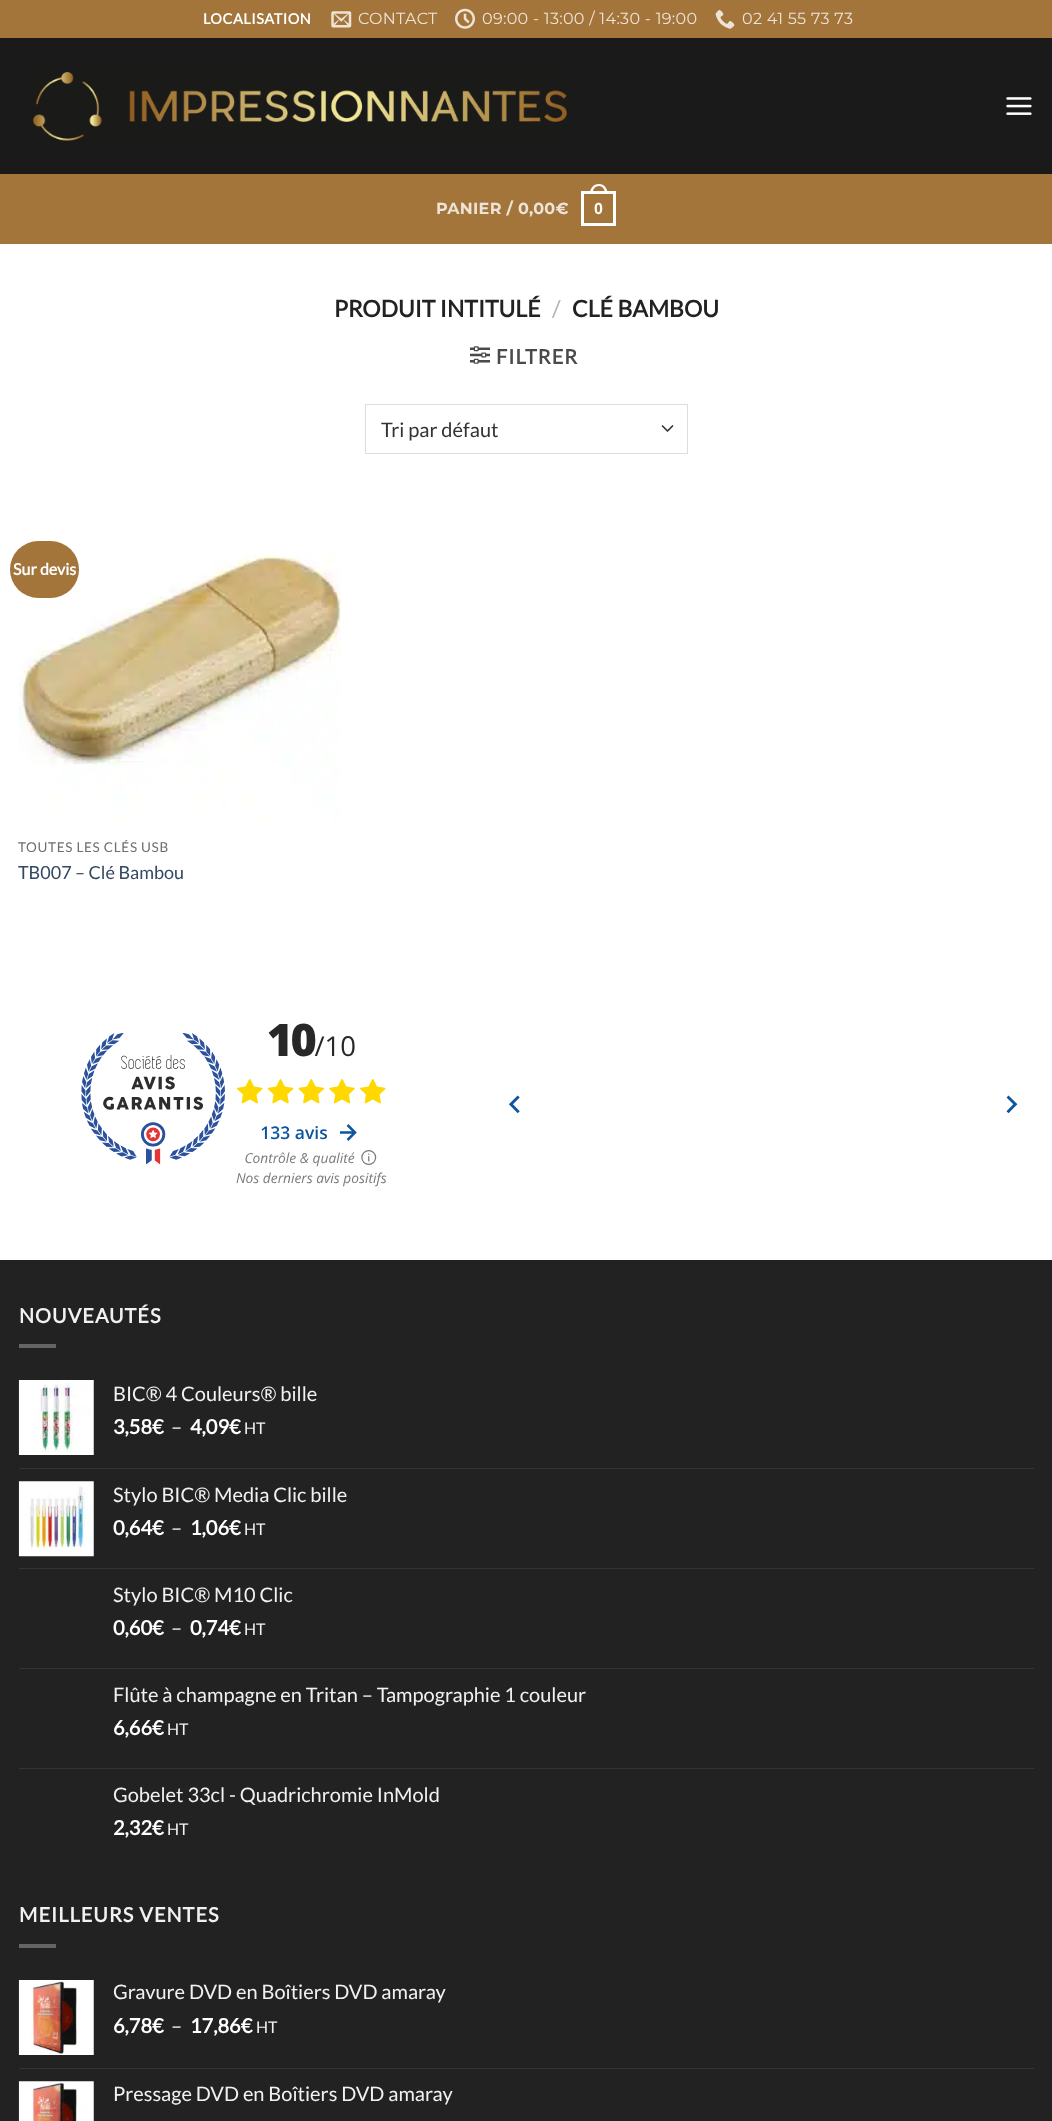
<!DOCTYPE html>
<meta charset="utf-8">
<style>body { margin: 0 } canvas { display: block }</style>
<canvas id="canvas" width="1052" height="2121"></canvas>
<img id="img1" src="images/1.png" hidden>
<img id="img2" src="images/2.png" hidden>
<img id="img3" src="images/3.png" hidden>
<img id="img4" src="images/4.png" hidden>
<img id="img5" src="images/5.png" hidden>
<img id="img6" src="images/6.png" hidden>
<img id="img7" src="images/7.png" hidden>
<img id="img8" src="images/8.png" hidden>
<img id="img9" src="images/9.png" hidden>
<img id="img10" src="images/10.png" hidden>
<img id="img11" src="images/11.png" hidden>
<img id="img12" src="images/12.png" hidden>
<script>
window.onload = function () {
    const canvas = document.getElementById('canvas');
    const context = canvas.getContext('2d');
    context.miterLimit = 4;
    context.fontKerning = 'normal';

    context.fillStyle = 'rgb(255, 255, 255)';
    context.fillRect(0, 0, 1052, 2121);
    context.fillStyle = 'rgb(163, 117, 59)';
    context.fillRect(0, 0, 1052, 38);
    context.drawImage(document.getElementById('img1'), 331, 11, 21, 17);
    context.drawImage(document.getElementById('img2'), 455, 8, 20, 21);
    context.drawImage(document.getElementById('img3'), 715, 10, 20, 19);
    context.fillStyle = 'rgb(26, 26, 26)';
    context.fillRect(0, 38, 1052, 136);
    context.drawImage(document.getElementById('img4'), 32, 71, 535, 70);
    context.drawImage(document.getElementById('img5'), 1006, 97, 26, 18);
    context.fillStyle = 'rgb(163, 117, 59)';
    context.fillRect(0, 174, 1052, 70);
    context.strokeStyle = 'rgb(255, 255, 255)';
    context.lineWidth = 3;
    context.strokeRect(582.5, 192.5, 32, 32);
    context.fillStyle = 'rgb(255, 255, 255)';
    context.beginPath();
    context.moveTo(599, 184);
    context.bezierCurveTo(604.5, 184, 607.5, 188.5, 607.5, 194);
    context.lineTo(590, 194);
    context.bezierCurveTo(590, 188.5, 593, 184, 599, 184);
    context.closePath();
    context.moveTo(599, 186);
    context.bezierCurveTo(603, 186, 605, 190, 605, 194);
    context.lineTo(592.5, 194);
    context.bezierCurveTo(592.5, 190, 594.5, 186, 599, 186);
    context.closePath();
    context.fill('evenodd');
    context.drawImage(document.getElementById('img6'), 470, 346, 20, 18);
    context.beginPath();
    context.moveTo(662.5, 426);
    context.lineTo(667.5, 431);
    context.lineTo(672.5, 426);
    context.strokeStyle = 'rgb(51, 51, 51)';
    context.lineWidth = 1.7;
    context.lineCap = 'round';
    context.lineJoin = 'round';
    context.stroke();
    context.strokeStyle = 'rgb(221, 221, 221)';
    context.lineWidth = 1;
    context.lineJoin = 'miter';
    context.strokeRect(365.5, 404.5, 322, 49);
    context.drawImage(document.getElementById('img7'), 19, 554, 322, 268);
    context.fillStyle = 'rgb(163, 117, 59)';
    context.beginPath();
    context.roundRect(10, 541, 69, 57, 28.5);
    context.fill();
    context.drawImage(document.getElementById('img8'), 81, 1023, 937, 164);
    context.fillStyle = 'rgb(34, 34, 34)';
    context.fillRect(0, 1261, 1052, 860);
    context.fillStyle = 'rgb(32, 32, 32)';
    context.fillRect(0, 1260, 1052, 1);
    context.fillStyle = 'rgb(100, 100, 100)';
    context.fillRect(19, 1344, 37, 4);
    context.drawImage(document.getElementById('img9'), 18, 1380, 76, 75);
    context.fillStyle = 'rgb(52, 52, 52)';
    context.fillRect(19, 1468, 1015, 1);
    context.drawImage(document.getElementById('img10'), 18, 1481, 76, 76);
    context.fillRect(19, 1568, 1015, 1);
    context.fillRect(19, 1668, 1015, 1);
    context.fillRect(19, 1768, 1015, 1);
    context.fillStyle = 'rgb(100, 100, 100)';
    context.fillRect(19, 1944, 37, 4);
    context.drawImage(document.getElementById('img11'), 18, 1980, 76, 75);
    context.fillStyle = 'rgb(52, 52, 52)';
    context.fillRect(19, 2068, 1015, 1);
    context.drawImage(document.getElementById('img12'), 18, 2081, 76, 40);
    context.letterSpacing = '0.5px';
    context.font = 'bold 14.5px Lato';
    context.fillStyle = 'rgb(255, 255, 255)';
    context.fillText('LOCALISATION', 203, 24);
    context.letterSpacing = '0.3px';
    context.font = '16px Montserrat';
    context.fillStyle = 'rgb(237, 227, 216)';
    context.fillText('CONTACT', 358, 24);
    context.fillText('09:00 - 13:00 / 14:30 - 19:00', 482, 24);
    context.fillText('02 41 55 73 73', 742, 24);
    context.font = 'bold 16px Montserrat';
    context.fillText('PANIER / 0,00€', 436, 214);
    context.font = 'bold 16px Liberation Sans';
    context.fillStyle = 'rgb(255, 255, 255)';
    context.fillText('0', 594, 214);
    context.letterSpacing = '0px';
    context.font = 'bold 23px Lato';
    context.fillStyle = 'rgb(34, 34, 34)';
    context.fillText('PRODUIT INTITULÉ', 334, 317);
    context.font = '23px Lato';
    context.fillStyle = 'rgb(178, 178, 178)';
    context.fillText('/', 552, 317);
    context.font = 'bold 23px Lato';
    context.fillStyle = 'rgb(34, 34, 34)';
    context.fillText('CLÉ BAMBOU', 572, 317);
    context.letterSpacing = '1px';
    context.font = 'bold 20px Lato';
    context.fillStyle = 'rgb(74, 74, 74)';
    context.fillText('FILTRER', 496, 364);
    context.letterSpacing = '0px';
    context.font = '20px Lato';
    context.fillStyle = 'rgb(51, 51, 51)';
    context.fillText('Tri par défaut', 381, 437);
    context.font = 'bold 16px Lato';
    context.fillStyle = 'rgb(255, 255, 255)';
    context.fillText('Sur devis', 13, 575);
    context.letterSpacing = '0.7px';
    context.font = '13.5px Lato';
    context.fillStyle = 'rgb(110, 110, 110)';
    context.fillText('TOUTES LES CLÉS USB', 18, 852);
    context.letterSpacing = '0px';
    context.font = '18px Lato';
    context.fillStyle = 'rgb(51, 72, 98)';
    context.fillText('TB007 – Clé Bambou', 18, 879);
    context.letterSpacing = '1px';
    context.font = 'bold 20px Lato';
    context.fillStyle = 'rgb(241, 241, 241)';
    context.fillText('NOUVEAUTÉS', 19, 1323);
    context.letterSpacing = '0px';
    context.font = '20px Lato';
    context.fillText('BIC® 4 Couleurs® bille', 113, 1401);
    context.font = 'bold 20px Lato';
    context.fillStyle = 'rgb(255, 255, 255)';
    context.fillText('3,58€', 113, 1434);
    context.font = '20px Lato';
    context.fillStyle = 'rgb(241, 241, 241)';
    context.fillText('–', 171, 1434);
    context.font = 'bold 20px Lato';
    context.fillStyle = 'rgb(255, 255, 255)';
    context.fillText('4,09€', 190, 1434);
    context.font = '16px Lato';
    context.fillStyle = 'rgb(241, 241, 241)';
    context.fillText('HT', 244, 1434);
    context.font = '20px Lato';
    context.fillText('Stylo BIC® Media Clic bille', 113, 1502);
    context.font = 'bold 20px Lato';
    context.fillStyle = 'rgb(255, 255, 255)';
    context.fillText('0,64€', 113, 1535);
    context.font = '20px Lato';
    context.fillStyle = 'rgb(241, 241, 241)';
    context.fillText('–', 171, 1535);
    context.font = 'bold 20px Lato';
    context.fillStyle = 'rgb(255, 255, 255)';
    context.fillText('1,06€', 190, 1535);
    context.font = '16px Lato';
    context.fillStyle = 'rgb(241, 241, 241)';
    context.fillText('HT', 244, 1535);
    context.font = '20px Lato';
    context.fillText('Stylo BIC® M10 Clic', 113, 1602);
    context.font = 'bold 20px Lato';
    context.fillStyle = 'rgb(255, 255, 255)';
    context.fillText('0,60€', 113, 1635);
    context.font = '20px Lato';
    context.fillStyle = 'rgb(241, 241, 241)';
    context.fillText('–', 171, 1635);
    context.font = 'bold 20px Lato';
    context.fillStyle = 'rgb(255, 255, 255)';
    context.fillText('0,74€', 190, 1635);
    context.font = '16px Lato';
    context.fillStyle = 'rgb(241, 241, 241)';
    context.fillText('HT', 244, 1635);
    context.font = '20px Lato';
    context.fillText('Flûte à champagne en Tritan – Tampographie 1 couleur', 113, 1702);
    context.font = 'bold 20px Lato';
    context.fillStyle = 'rgb(255, 255, 255)';
    context.fillText('6,66€', 113, 1735);
    context.font = '16px Lato';
    context.fillStyle = 'rgb(241, 241, 241)';
    context.fillText('HT', 167, 1735);
    context.font = '20px Lato';
    context.fillText('Gobelet 33cl - Quadrichromie InMold', 113, 1802);
    context.font = 'bold 20px Lato';
    context.fillStyle = 'rgb(255, 255, 255)';
    context.fillText('2,32€', 113, 1835);
    context.font = '16px Lato';
    context.fillStyle = 'rgb(241, 241, 241)';
    context.fillText('HT', 167, 1835);
    context.letterSpacing = '1px';
    context.font = 'bold 20px Lato';
    context.fillText('MEILLEURS VENTES', 19, 1922);
    context.letterSpacing = '0px';
    context.font = '20px Lato';
    context.fillText('Gravure DVD en Boîtiers DVD amaray', 113, 1999);
    context.font = 'bold 20px Lato';
    context.fillStyle = 'rgb(255, 255, 255)';
    context.fillText('6,78€', 113, 2033);
    context.font = '20px Lato';
    context.fillStyle = 'rgb(241, 241, 241)';
    context.fillText('–', 171, 2033);
    context.font = 'bold 20px Lato';
    context.fillStyle = 'rgb(255, 255, 255)';
    context.fillText('17,86€', 190, 2033);
    context.font = '16px Lato';
    context.fillStyle = 'rgb(241, 241, 241)';
    context.fillText('HT', 256, 2033);
    context.font = '20px Lato';
    context.fillText('Pressage DVD en Boîtiers DVD amaray', 113, 2101);
};
</script>
